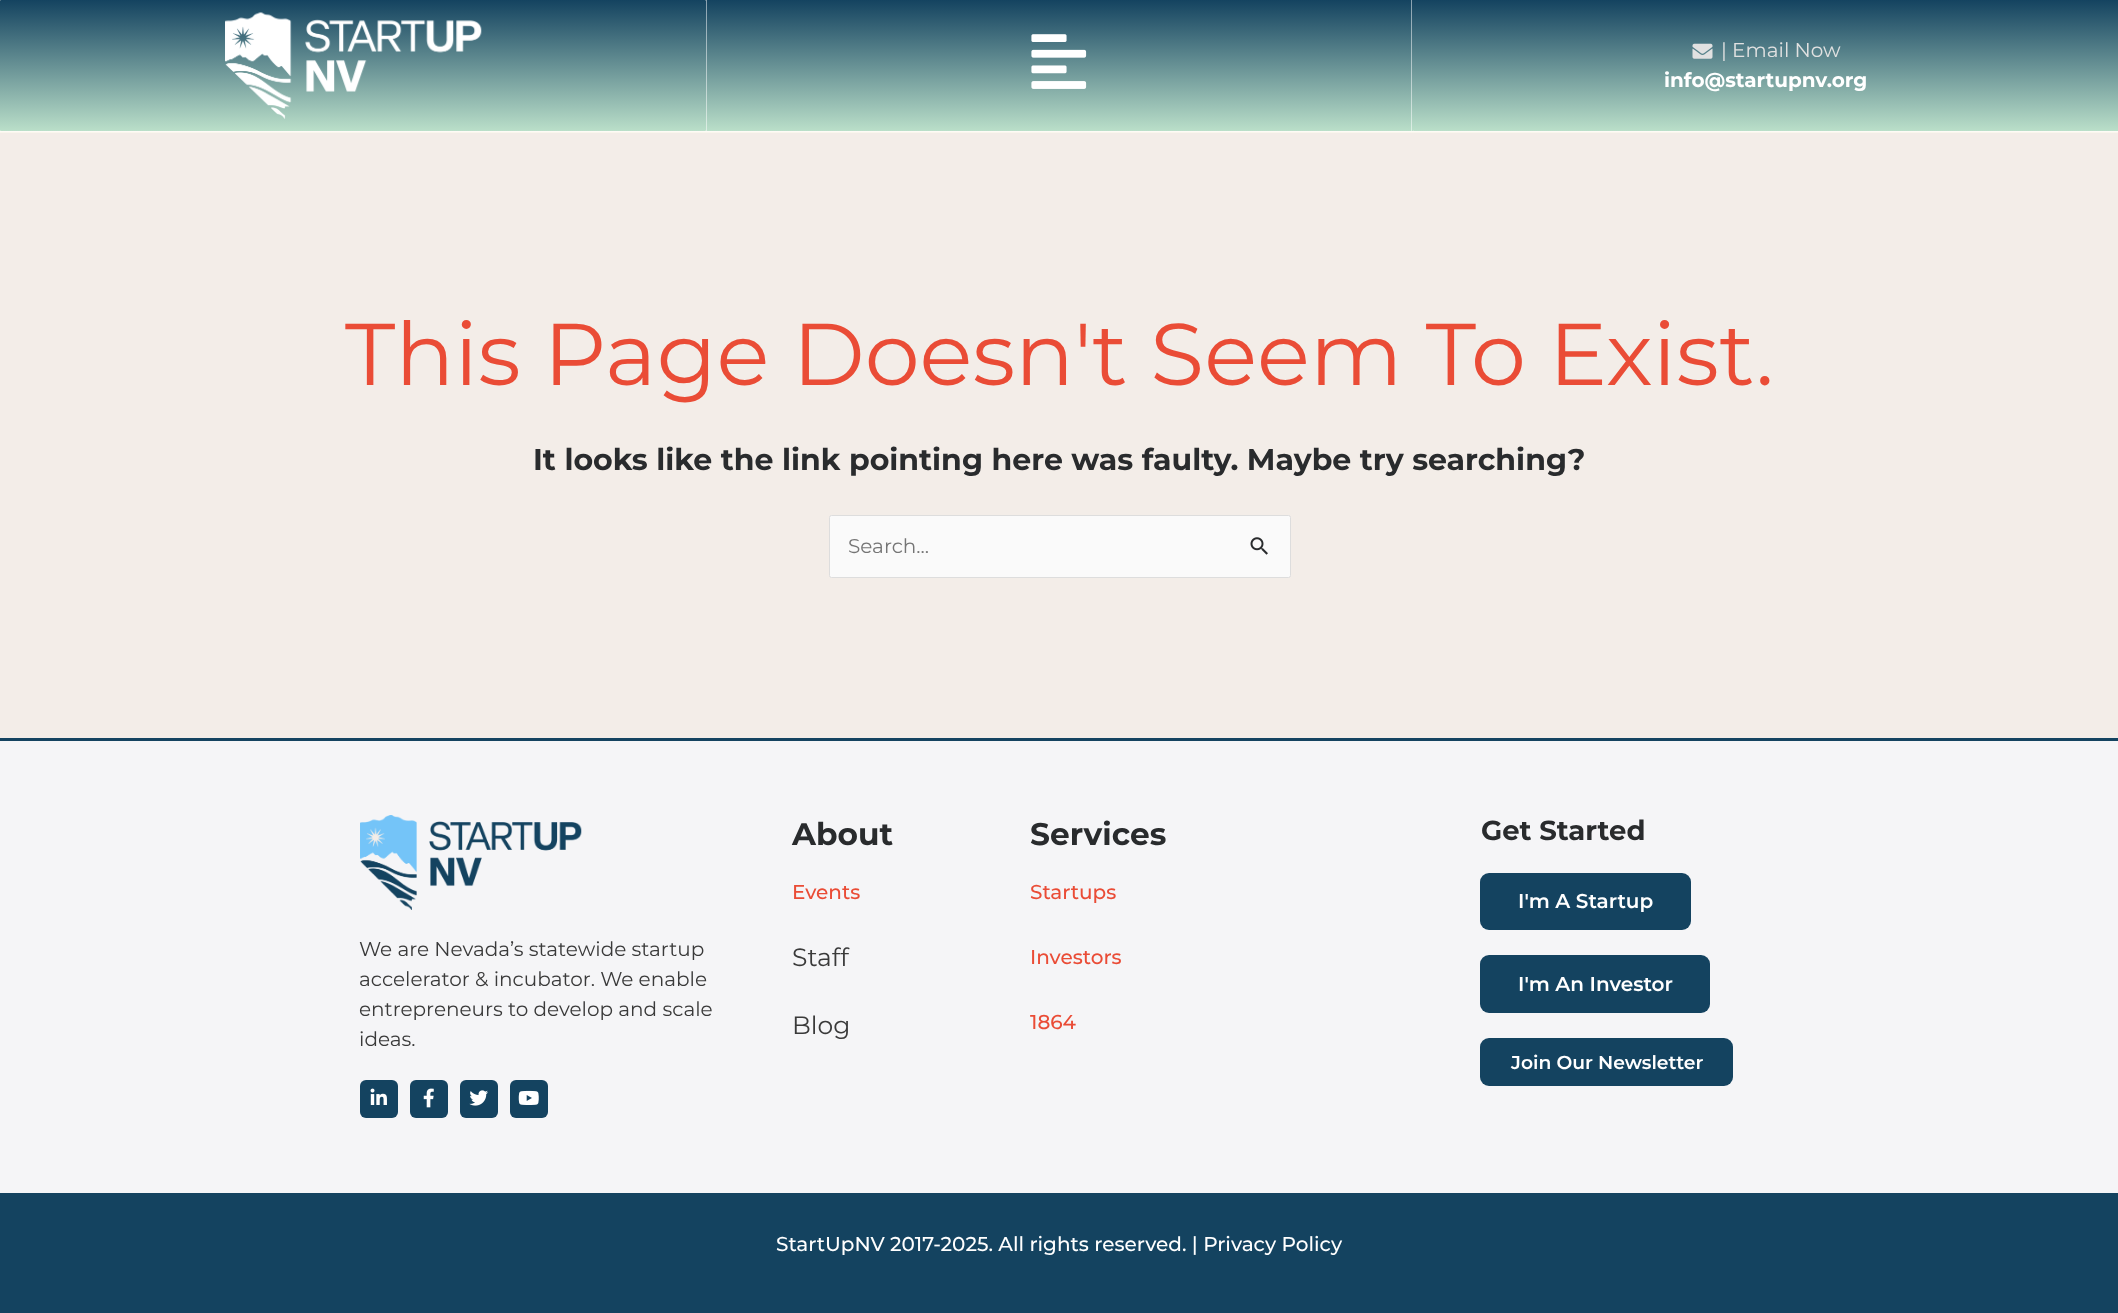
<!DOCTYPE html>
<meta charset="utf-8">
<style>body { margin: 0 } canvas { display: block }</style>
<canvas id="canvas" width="2118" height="1313"></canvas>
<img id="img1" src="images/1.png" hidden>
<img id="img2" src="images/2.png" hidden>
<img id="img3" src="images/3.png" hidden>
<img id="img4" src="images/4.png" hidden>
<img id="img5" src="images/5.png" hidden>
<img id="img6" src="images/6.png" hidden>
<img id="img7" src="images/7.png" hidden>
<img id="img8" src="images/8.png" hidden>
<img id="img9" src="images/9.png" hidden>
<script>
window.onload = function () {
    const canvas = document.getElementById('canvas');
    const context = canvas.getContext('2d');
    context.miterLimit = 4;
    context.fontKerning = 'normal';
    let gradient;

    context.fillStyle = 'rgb(243, 237, 232)';
    context.fillRect(0, 0, 2118, 1313);
    context.fillStyle = 'rgb(250, 246, 237)';
    context.fillRect(0, 0, 2118, 133);
    context.fillStyle = 'rgb(253, 251, 246)';
    context.fillRect(0, 131, 2118, 1);
    gradient = context.createLinearGradient(353, 0, 353, 131);
    gradient.addColorStop(0, 'rgb(20, 67, 96)');
    gradient.addColorStop(1, 'rgb(186, 223, 201)');
    context.fillStyle = gradient;
    context.beginPath();
    context.roundRect(0, 0, 706, 131, 1);
    context.fill();
    context.drawImage(document.getElementById('img1'), 225, 12, 257, 107);
    gradient = context.createLinearGradient(1059, 0, 1059, 131);
    gradient.addColorStop(0, 'rgb(20, 67, 96)');
    gradient.addColorStop(1, 'rgb(186, 223, 201)');
    context.fillStyle = gradient;
    context.fillRect(707, 0, 706, 131);
    gradient = context.createLinearGradient(1059, 0, 1059, 131);
    gradient.addColorStop(0, 'rgb(138, 161, 176)');
    gradient.addColorStop(1, 'rgb(221, 239, 228)');
    context.fillStyle = gradient;
    context.fillRect(706, 0, 1, 131);
    context.fillRect(1411, 0, 1, 131);
    context.drawImage(document.getElementById('img2'), 1031, 34, 56, 55);
    gradient = context.createLinearGradient(1766, 0, 1766, 131);
    gradient.addColorStop(0, 'rgb(20, 67, 96)');
    gradient.addColorStop(1, 'rgb(186, 223, 201)');
    context.fillStyle = gradient;
    context.beginPath();
    context.moveTo(1413, 0);
    context.lineTo(2118, 0);
    context.bezierCurveTo(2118.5, 0, 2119, 0.5, 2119, 1);
    context.lineTo(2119, 131);
    context.lineTo(1414, 131);
    context.bezierCurveTo(1413.5, 131, 1413, 130.5, 1413, 130);
    context.closePath();
    context.fill();
    context.drawImage(document.getElementById('img3'), 1692, 43, 21, 16);
    context.fillStyle = 'rgb(250, 250, 250)';
    context.beginPath();
    context.roundRect(829.5, 515.5, 461, 62, 2);
    context.fill();
    context.strokeStyle = 'rgb(221, 221, 221)';
    context.stroke();
    context.drawImage(document.getElementById('img4'), 1250, 537, 18, 18);
    context.fillStyle = 'rgb(245, 245, 247)';
    context.fillRect(0, 741, 2118, 452);
    context.fillStyle = 'rgb(20, 67, 96)';
    context.fillRect(0, 738, 2118, 3);
    context.drawImage(document.getElementById('img5'), 360, 815, 222, 95);
    context.beginPath();
    context.roundRect(360, 1080, 38, 38, 6);
    context.fill();
    context.drawImage(document.getElementById('img6'), 370, 1088, 17, 17);
    context.beginPath();
    context.roundRect(410, 1080, 38, 38, 6);
    context.fill();
    context.drawImage(document.getElementById('img7'), 423, 1088, 11, 20);
    context.beginPath();
    context.roundRect(460, 1080, 38, 38, 6);
    context.fill();
    context.drawImage(document.getElementById('img8'), 469, 1090, 19, 16);
    context.beginPath();
    context.roundRect(510, 1080, 38, 38, 6);
    context.fill();
    context.drawImage(document.getElementById('img9'), 518, 1090, 21, 15);
    context.beginPath();
    context.roundRect(1480, 873, 211, 57, 9);
    context.fill();
    context.beginPath();
    context.roundRect(1480, 955, 230, 58, 9);
    context.fill();
    context.beginPath();
    context.roundRect(1480, 1038, 253, 48, 9);
    context.fill();
    context.fillRect(0, 1193, 2118, 120);
    context.font = '20px Montserrat';
    context.fillStyle = 'rgb(225, 225, 225)';
    context.fillText('| Email Now', 1721, 57);
    context.font = 'bold 20px Montserrat';
    context.fillStyle = 'rgb(255, 255, 255)';
    context.fillText('info@startupnv.org', 1664, 87);
    context.font = '87.5px Montserrat';
    context.fillStyle = 'rgb(234, 76, 54)';
    context.fillText('This Page Doesn\'t Seem To Exist.', 345, 385);
    context.font = 'bold 30px Montserrat';
    context.fillStyle = 'rgb(41, 43, 45)';
    context.fillText('It looks like the link pointing here was faulty. Maybe try searching?', 533, 470);
    context.font = '20px Montserrat';
    context.fillStyle = 'rgb(117, 117, 117)';
    context.fillText('Search...', 848, 553);
    context.fillStyle = 'rgb(58, 58, 58)';
    context.fillText('We are Nevada’s statewide startup', 359, 956);
    context.fillText('accelerator & incubator. We enable', 359, 986);
    context.fillText('entrepreneurs to develop and scale', 359, 1016);
    context.fillText('ideas.', 359, 1046);
    context.font = 'bold 31.25px Montserrat';
    context.fillStyle = 'rgb(41, 43, 45)';
    context.fillText('About', 792, 845);
    context.font = '500 20px Montserrat';
    context.fillStyle = 'rgb(234, 76, 54)';
    context.fillText('Events', 792, 899);
    context.font = '25px Montserrat';
    context.fillStyle = 'rgb(58, 58, 58)';
    context.fillText('Staff', 792, 966);
    context.fillText('Blog', 792, 1034);
    context.font = 'bold 31.25px Montserrat';
    context.fillStyle = 'rgb(41, 43, 45)';
    context.fillText('Services', 1030, 845);
    context.font = '500 20px Montserrat';
    context.fillStyle = 'rgb(234, 76, 54)';
    context.fillText('Startups', 1030, 899);
    context.fillText('Investors', 1030, 964);
    context.fillText('1864', 1030, 1029);
    context.font = 'bold 27.5px Montserrat';
    context.fillStyle = 'rgb(41, 43, 45)';
    context.fillText('Get Started', 1481, 840);
    context.font = '600 20px Montserrat';
    context.fillStyle = 'rgb(255, 255, 255)';
    context.fillText('I\'m A Startup', 1518, 908);
    context.fillText('I\'m An Investor', 1518, 991);
    context.font = '600 18.75px Montserrat';
    context.fillText('Join Our Newsletter', 1511, 1069);
    context.font = '500 20px Montserrat';
    context.fillText('StartUpNV 2017-2025. All rights reserved. | Privacy Policy', 776, 1251);
};
</script>
